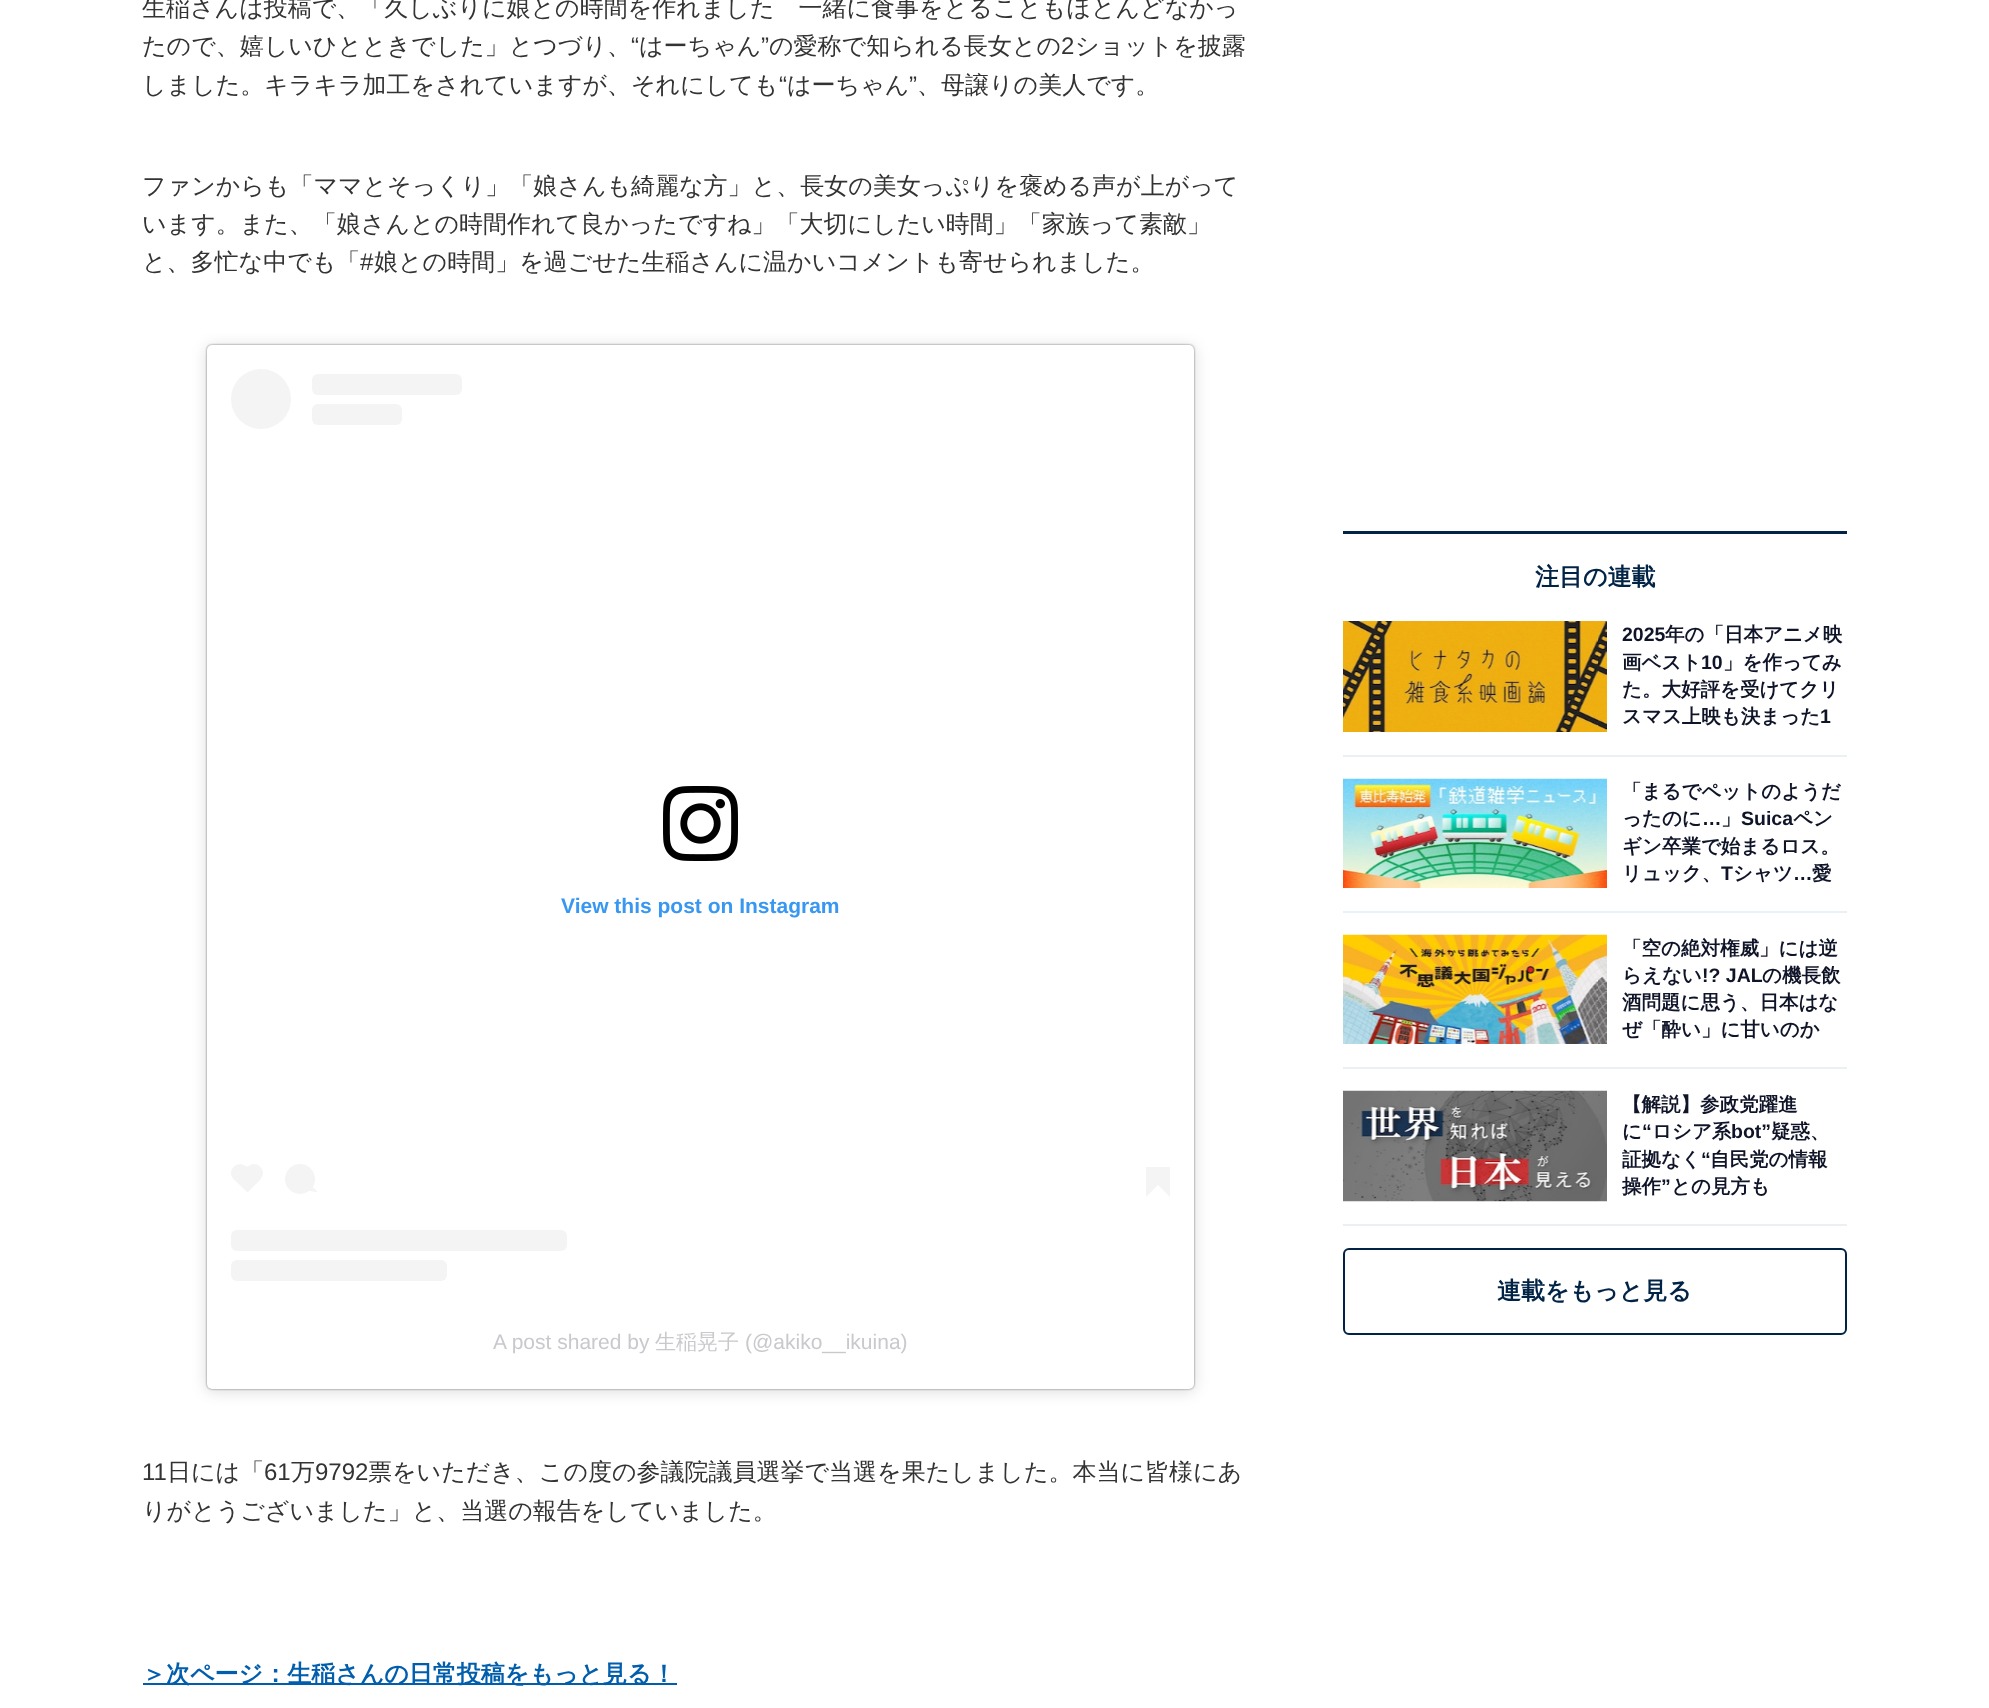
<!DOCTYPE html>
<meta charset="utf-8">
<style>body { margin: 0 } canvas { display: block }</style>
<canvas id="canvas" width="1989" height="1708"></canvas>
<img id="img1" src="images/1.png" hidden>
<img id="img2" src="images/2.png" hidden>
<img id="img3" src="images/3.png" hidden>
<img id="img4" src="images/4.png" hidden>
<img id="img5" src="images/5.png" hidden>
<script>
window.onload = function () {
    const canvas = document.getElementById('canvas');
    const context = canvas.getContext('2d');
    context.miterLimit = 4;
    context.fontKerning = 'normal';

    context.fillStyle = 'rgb(255, 255, 255)';
    context.fillRect(0, 0, 1989, 1708);
    context.fillStyle = 'rgba(0, 0, 0, 0.15)';
    context.filter = 'blur(7.5px)';
    context.beginPath();
    context.roundRect(207, 347, 987, 1044, 5);
    context.fill();
    context.filter = 'none';
    context.fillStyle = 'rgba(0, 0, 0, 0.5)';
    context.filter = 'blur(1px)';
    context.beginPath();
    context.roundRect(207, 345, 987, 1044, 5);
    context.fill();
    context.filter = 'none';
    context.fillStyle = 'rgb(255, 255, 255)';
    context.beginPath();
    context.roundRect(207, 345, 987, 1044, 5);
    context.fill();
    context.fillStyle = 'rgb(244, 244, 244)';
    context.beginPath();
    context.arc(261, 399, 30, 0, 2 * Math.PI);
    context.fill();
    context.beginPath();
    context.roundRect(312, 374, 150, 21, 6);
    context.fill();
    context.beginPath();
    context.roundRect(312, 404, 90, 21, 6);
    context.fill();
    context.drawImage(document.getElementById('img1'), 663, 786, 75, 75);
    context.beginPath();
    context.arc(240, 1173, 9, 0, 2 * Math.PI);
    context.fill();
    context.beginPath();
    context.moveTo(234, 1179.5);
    context.lineTo(247.5, 1166);
    context.lineTo(260.5, 1179.5);
    context.lineTo(247.5, 1192.5);
    context.closePath();
    context.fill();
    context.beginPath();
    context.arc(254, 1173, 9, 0, 2 * Math.PI);
    context.fill();
    context.beginPath();
    context.arc(300, 1179, 15, 0, 2 * Math.PI);
    context.fill();
    context.beginPath();
    context.moveTo(308.5, 1190.5);
    context.lineTo(311.5, 1185.5);
    context.lineTo(318, 1192.5);
    context.closePath();
    context.fill();
    context.fillRect(1146, 1167, 24, 18);
    context.beginPath();
    context.moveTo(1146, 1185);
    context.lineTo(1158, 1185);
    context.lineTo(1146, 1197);
    context.closePath();
    context.fill();
    context.beginPath();
    context.moveTo(1158, 1185);
    context.lineTo(1170, 1185);
    context.lineTo(1170, 1197);
    context.closePath();
    context.fill();
    context.beginPath();
    context.roundRect(231, 1230, 336, 21, 6);
    context.fill();
    context.beginPath();
    context.roundRect(231, 1260, 216, 21, 6);
    context.fill();
    context.fillStyle = 'rgb(0, 94, 173)';
    context.fillRect(143, 1683, 534, 2);
    context.fillStyle = 'rgb(0, 35, 70)';
    context.fillRect(1343, 531, 504, 3);
    context.fillStyle = 'rgb(235, 240, 245)';
    context.fillRect(1343, 755, 504, 2);
    context.drawImage(document.getElementById('img2'), 1343, 621, 264, 111);
    context.fillRect(1343, 911, 504, 2);
    context.drawImage(document.getElementById('img3'), 1343, 778, 264, 110);
    context.fillRect(1343, 1067, 504, 2);
    context.drawImage(document.getElementById('img4'), 1343, 934, 264, 110);
    context.fillRect(1343, 1224, 504, 2);
    context.drawImage(document.getElementById('img5'), 1343, 1090, 264, 112);
    context.beginPath();
    context.roundRect(1344, 1249, 502, 85, 5);
    context.strokeStyle = 'rgb(0, 35, 70)';
    context.lineWidth = 2;
    context.stroke();
    context.font = '500 24px WenQuanYi Zen Hei';
    context.fillStyle = 'rgb(51, 51, 51)';
    context.fillText('生稲さんは投稿で、「久しぶりに娘との時間を作れました　一緒に食事をとることもほとんどなかっ', 142, 16);
    context.fillText('たので、嬉しいひとときでした」とつづり、', 142, 54);
    context.font = '24px Liberation Sans';
    context.fillText('“', 631, 54);
    context.font = '500 24px WenQuanYi Zen Hei';
    context.fillText('はーちゃん', 639, 54);
    context.font = '24px Liberation Sans';
    context.fillText('”', 761, 54);
    context.font = '500 24px WenQuanYi Zen Hei';
    context.fillText('の愛称で知られる長女との', 769, 54);
    context.font = '24px Liberation Sans';
    context.fillText('2', 1061, 54);
    context.font = '500 24px WenQuanYi Zen Hei';
    context.fillText('ショットを披露', 1075, 54);
    context.fillText('しました。キラキラ加工をされていますが、それにしても', 142, 93);
    context.font = '24px Liberation Sans';
    context.fillText('“', 779, 93);
    context.font = '500 24px WenQuanYi Zen Hei';
    context.fillText('はーちゃん', 787, 93);
    context.font = '24px Liberation Sans';
    context.fillText('”', 909, 93);
    context.font = '500 24px WenQuanYi Zen Hei';
    context.fillText('、母譲りの美人です。', 917, 93);
    context.fillText('ファンからも「ママとそっくり」「娘さんも綺麗な方」と、長女の美女っぷりを褒める声が上がって', 142, 194);
    context.fillText('います。また、「娘さんとの時間作れて良かったですね」「大切にしたい時間」「家族って素敵」', 142, 232);
    context.fillText('と、多忙な中でも「', 142, 270);
    context.font = '24px Liberation Sans';
    context.fillText('#', 360, 270);
    context.font = '500 24px WenQuanYi Zen Hei';
    context.fillText('娘との時間」を過ごせた生稲さんに温かいコメントも寄せられました。', 374, 270);
    context.font = 'bold 21px Liberation Sans';
    context.fillStyle = 'rgb(56, 151, 240)';
    context.fillText('View this post on Instagram', 561, 913);
    context.font = '21px Liberation Sans';
    context.fillStyle = 'rgb(201, 200, 205)';
    context.fillText('A post shared by', 493, 1349);
    context.font = '500 21px WenQuanYi Zen Hei';
    context.fillText('生稲晃子', 655, 1349);
    context.font = '21px Liberation Sans';
    context.fillText('(@akiko__ikuina)', 745, 1349);
    context.font = '24px Liberation Sans';
    context.fillStyle = 'rgb(51, 51, 51)';
    context.fillText('11', 142, 1480);
    context.font = '500 24px WenQuanYi Zen Hei';
    context.fillText('日には「', 167, 1480);
    context.font = '24px Liberation Sans';
    context.fillText('61', 264, 1480);
    context.font = '500 24px WenQuanYi Zen Hei';
    context.fillText('万', 291, 1480);
    context.font = '24px Liberation Sans';
    context.fillText('9792', 315, 1480);
    context.font = '500 24px WenQuanYi Zen Hei';
    context.fillText('票をいただき、この度の参議院議員選挙で当選を果たしました。本当に皆様にあ', 368, 1480);
    context.fillText('りがとうございました」と、当選の報告をしていました。', 142, 1519);
    context.font = 'bold 24px WenQuanYi Zen Hei';
    context.fillStyle = 'rgb(0, 94, 173)';
    context.fillText('＞次ページ：生稲さんの日常投稿をもっと見る！', 142, 1682);
    context.fillStyle = 'rgb(0, 35, 70)';
    context.fillText('注目の連載', 1535, 585);
    context.font = 'bold 19.5px Liberation Sans';
    context.fillStyle = 'rgb(15, 20, 40)';
    context.fillText('2025', 1622, 641);
    context.font = 'bold 19.5px WenQuanYi Zen Hei';
    context.fillText('年の「日本アニメ映', 1665, 641);
    context.fillText('画ベスト', 1622, 669);
    context.font = 'bold 19.5px Liberation Sans';
    context.fillText('10', 1701, 669);
    context.font = 'bold 19.5px WenQuanYi Zen Hei';
    context.fillText('」を作ってみ', 1723, 669);
    context.fillText('た。大好評を受けてクリ', 1622, 696);
    context.fillText('スマス上映も決まった', 1622, 723);
    context.font = 'bold 19.5px Liberation Sans';
    context.fillText('1', 1820, 723);
    context.font = 'bold 19.5px WenQuanYi Zen Hei';
    context.fillText('「まるでペットのようだ', 1622, 798);
    context.fillText('ったのに', 1622, 825);
    context.font = 'bold 19.5px Liberation Sans';
    context.fillText('…', 1702, 825);
    context.font = 'bold 19.5px WenQuanYi Zen Hei';
    context.fillText('」', 1721, 825);
    context.font = 'bold 19.5px Liberation Sans';
    context.fillText('Suica', 1741, 825);
    context.font = 'bold 19.5px WenQuanYi Zen Hei';
    context.fillText('ペン', 1793, 825);
    context.fillText('ギン卒業で始まるロス。', 1622, 853);
    context.fillText('リュック、', 1622, 880);
    context.font = 'bold 19.5px Liberation Sans';
    context.fillText('T', 1721, 880);
    context.font = 'bold 19.5px WenQuanYi Zen Hei';
    context.fillText('シャツ', 1733, 880);
    context.font = 'bold 19.5px Liberation Sans';
    context.fillText('…', 1793, 880);
    context.font = 'bold 19.5px WenQuanYi Zen Hei';
    context.fillText('愛', 1812, 880);
    context.fillText('「空の絶対権威」には逆', 1622, 955);
    context.fillText('らえない', 1622, 982);
    context.font = 'bold 19.5px Liberation Sans';
    context.fillText('!? JAL', 1702, 982);
    context.font = 'bold 19.5px WenQuanYi Zen Hei';
    context.fillText('の機長飲', 1762, 982);
    context.fillText('酒問題に思う、日本はな', 1622, 1009);
    context.fillText('ぜ「酔い」に甘いのか', 1622, 1036);
    context.fillText('【解説】参政党躍進', 1622, 1111);
    context.fillText('に', 1622, 1138);
    context.font = 'bold 19.5px Liberation Sans';
    context.fillText('“', 1642, 1138);
    context.font = 'bold 19.5px WenQuanYi Zen Hei';
    context.fillText('ロシア系', 1652, 1138);
    context.font = 'bold 19.5px Liberation Sans';
    context.fillText('bot”', 1731, 1138);
    context.font = 'bold 19.5px WenQuanYi Zen Hei';
    context.fillText('疑惑、', 1771, 1138);
    context.fillText('証拠なく', 1622, 1166);
    context.font = 'bold 19.5px Liberation Sans';
    context.fillText('“', 1701, 1166);
    context.font = 'bold 19.5px WenQuanYi Zen Hei';
    context.fillText('自民党の情報', 1710, 1166);
    context.fillText('操作', 1622, 1193);
    context.font = 'bold 19.5px Liberation Sans';
    context.fillText('”', 1661, 1193);
    context.font = 'bold 19.5px WenQuanYi Zen Hei';
    context.fillText('との見方も', 1671, 1193);
    context.font = 'bold 24px WenQuanYi Zen Hei';
    context.fillStyle = 'rgb(0, 35, 70)';
    context.fillText('連載をもっと見る', 1497, 1299);
};
</script>
